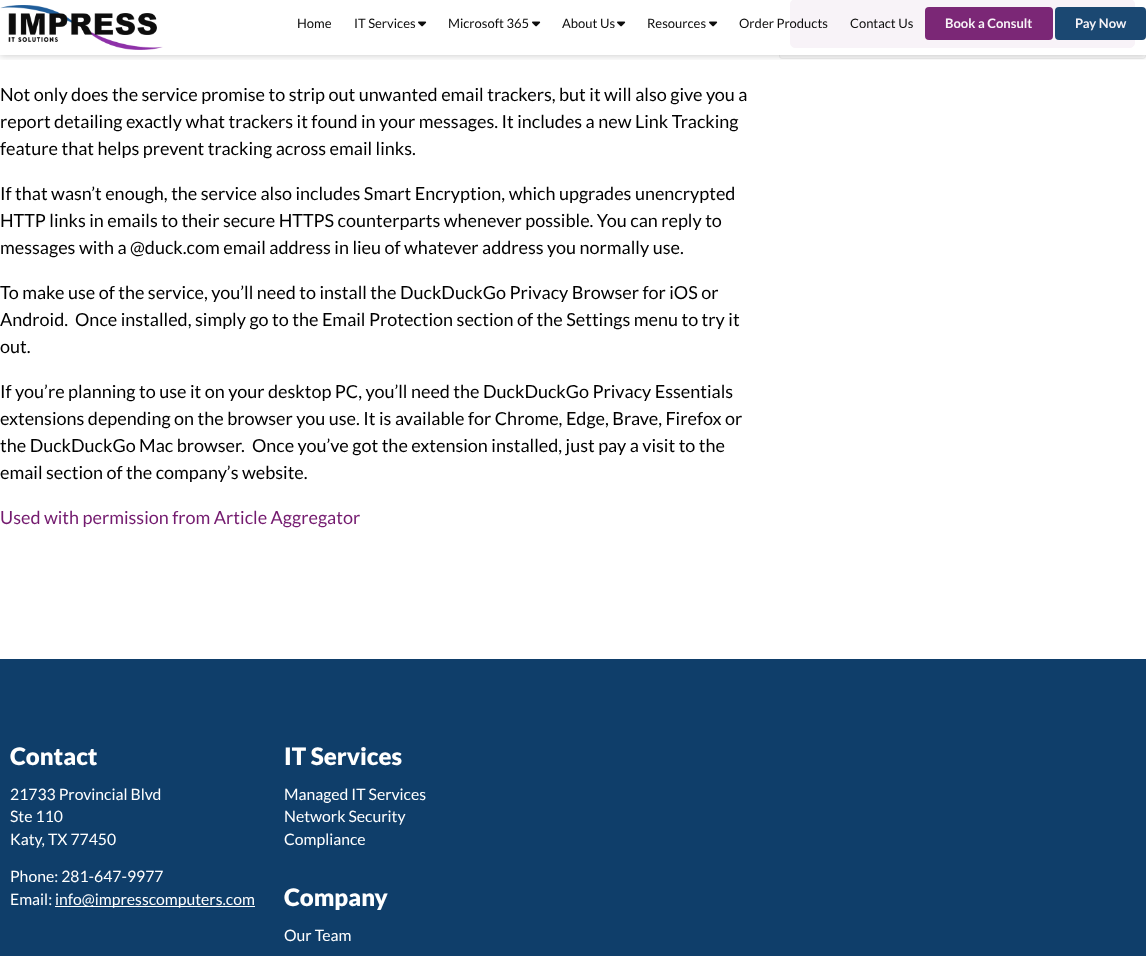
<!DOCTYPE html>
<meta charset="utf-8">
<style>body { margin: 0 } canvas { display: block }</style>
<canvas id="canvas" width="1146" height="956"></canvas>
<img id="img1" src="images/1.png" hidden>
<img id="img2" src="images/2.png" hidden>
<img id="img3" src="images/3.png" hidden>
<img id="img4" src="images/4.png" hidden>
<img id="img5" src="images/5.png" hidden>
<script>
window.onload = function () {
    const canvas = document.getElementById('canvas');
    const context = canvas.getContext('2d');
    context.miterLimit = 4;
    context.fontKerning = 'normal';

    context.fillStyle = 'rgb(255, 255, 255)';
    context.fillRect(0, 0, 1146, 956);
    context.fillStyle = 'rgb(249, 249, 249)';
    context.beginPath();
    context.roundRect(779.5, -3.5, 366, 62, 2.5);
    context.fill();
    context.strokeStyle = 'rgb(238, 238, 238)';
    context.stroke();
    context.fillStyle = 'rgb(116, 27, 111)';
    context.beginPath();
    context.roundRect(790.5, -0.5, 344, 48, 4.5);
    context.fill();
    context.strokeStyle = 'rgb(116, 27, 111)';
    context.stroke();
    context.save();
    context.beginPath();
    context.rect(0, 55, 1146, 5);
    context.clip();
    context.fillStyle = 'rgba(0, 0, 0, 0.19)';
    context.filter = 'blur(3.5px)';
    context.beginPath();
    context.rect(0, 1, 1146, 55);
    context.fill();
    context.filter = 'none';
    context.restore();
    context.fillStyle = 'rgba(255, 255, 255, 0.95)';
    context.fillRect(779, 0, 367, 55);
    context.drawImage(document.getElementById('img1'), 0, 5, 163, 45);
    context.drawImage(document.getElementById('img2'), 418, 21, 9, 6);
    context.drawImage(document.getElementById('img3'), 532, 21, 9, 6);
    context.drawImage(document.getElementById('img4'), 617, 21, 9, 6);
    context.drawImage(document.getElementById('img5'), 709, 21, 9, 6);
    context.fillStyle = 'rgba(116, 27, 111, 0.95)';
    context.beginPath();
    context.roundRect(925, 7, 128, 33, 4);
    context.fill();
    context.fillStyle = 'rgba(15, 62, 106, 0.95)';
    context.beginPath();
    context.roundRect(1055, 7, 91, 33, 4);
    context.fill();
    context.fillStyle = 'rgb(15, 62, 106)';
    context.fillRect(0, 659, 1146, 297);
    context.fillStyle = 'rgb(255, 255, 255)';
    context.fillRect(55, 906, 200, 1);
    context.font = '13px Lato';
    context.fillStyle = 'rgb(13, 13, 13)';
    context.fillText('Home', 297, 28);
    context.fillText('IT Services', 354, 28);
    context.fillText('Microsoft 365', 448, 28);
    context.fillText('About Us', 562, 28);
    context.fillText('Resources', 647, 28);
    context.fillText('Order Products', 739, 28);
    context.fillText('Contact Us', 850, 28);
    context.font = 'bold 13px Lato';
    context.fillStyle = 'rgb(248, 244, 248)';
    context.fillText('Book a Consult', 945, 28);
    context.fillText('Pay Now', 1075, 28);
    context.font = '18px Lato';
    context.fillStyle = 'rgb(0, 0, 0)';
    context.fillText('Not only does the service promise to strip out unwanted email trackers, but it will also give you a', 0, 101);
    context.fillText('report detailing exactly what trackers it found in your messages. It includes a new Link Tracking', 0, 128);
    context.fillText('feature that helps prevent tracking across email links.', 0, 155);
    context.fillText('If that wasn’t enough, the service also includes Smart Encryption, which upgrades unencrypted', 0, 200);
    context.fillText('HTTP links in emails to their secure HTTPS counterparts whenever possible. You can reply to', 0, 227);
    context.fillText('messages with a @duck.com email address in lieu of whatever address you normally use.', 0, 254);
    context.fillText('To make use of the service, you’ll need to install the DuckDuckGo Privacy Browser for iOS or', 0, 299);
    context.fillText('Android.  Once installed, simply go to the Email Protection section of the Settings menu to try it', 0, 326);
    context.fillText('out.', 0, 353);
    context.fillText('If you’re planning to use it on your desktop PC, you’ll need the DuckDuckGo Privacy Essentials', 0, 398);
    context.fillText('extensions depending on the browser you use. It is available for Chrome, Edge, Brave, Firefox or', 0, 425);
    context.fillText('the DuckDuckGo Mac browser.  Once you’ve got the extension installed, just pay a visit to the', 0, 452);
    context.fillText('email section of the company’s website.', 0, 479);
    context.fillStyle = 'rgb(116, 27, 111)';
    context.fillText('Used with permission from Article Aggregator', 0, 524);
    context.font = '900 24px Lato';
    context.fillStyle = 'rgb(255, 255, 255)';
    context.fillText('Contact', 10, 765);
    context.font = '15.75px Lato';
    context.fillText('21733 Provincial Blvd', 10, 800);
    context.fillText('Ste 110', 10, 822);
    context.fillText('Katy, TX 77450', 10, 845);
    context.fillText('Phone: 281-647-9977', 10, 882);
    context.fillText('Email:', 10, 905);
    context.fillText('info@impresscomputers.com', 55, 905);
    context.font = '900 24px Lato';
    context.fillText('IT Services', 284, 765);
    context.font = '15.75px Lato';
    context.fillText('Managed IT Services', 284, 800);
    context.fillText('Network Security', 284, 822);
    context.fillText('Compliance', 284, 845);
    context.font = '900 24px Lato';
    context.fillText('Company', 284, 906);
    context.font = '15.75px Lato';
    context.fillText('Our Team', 284, 941);
};
</script>
